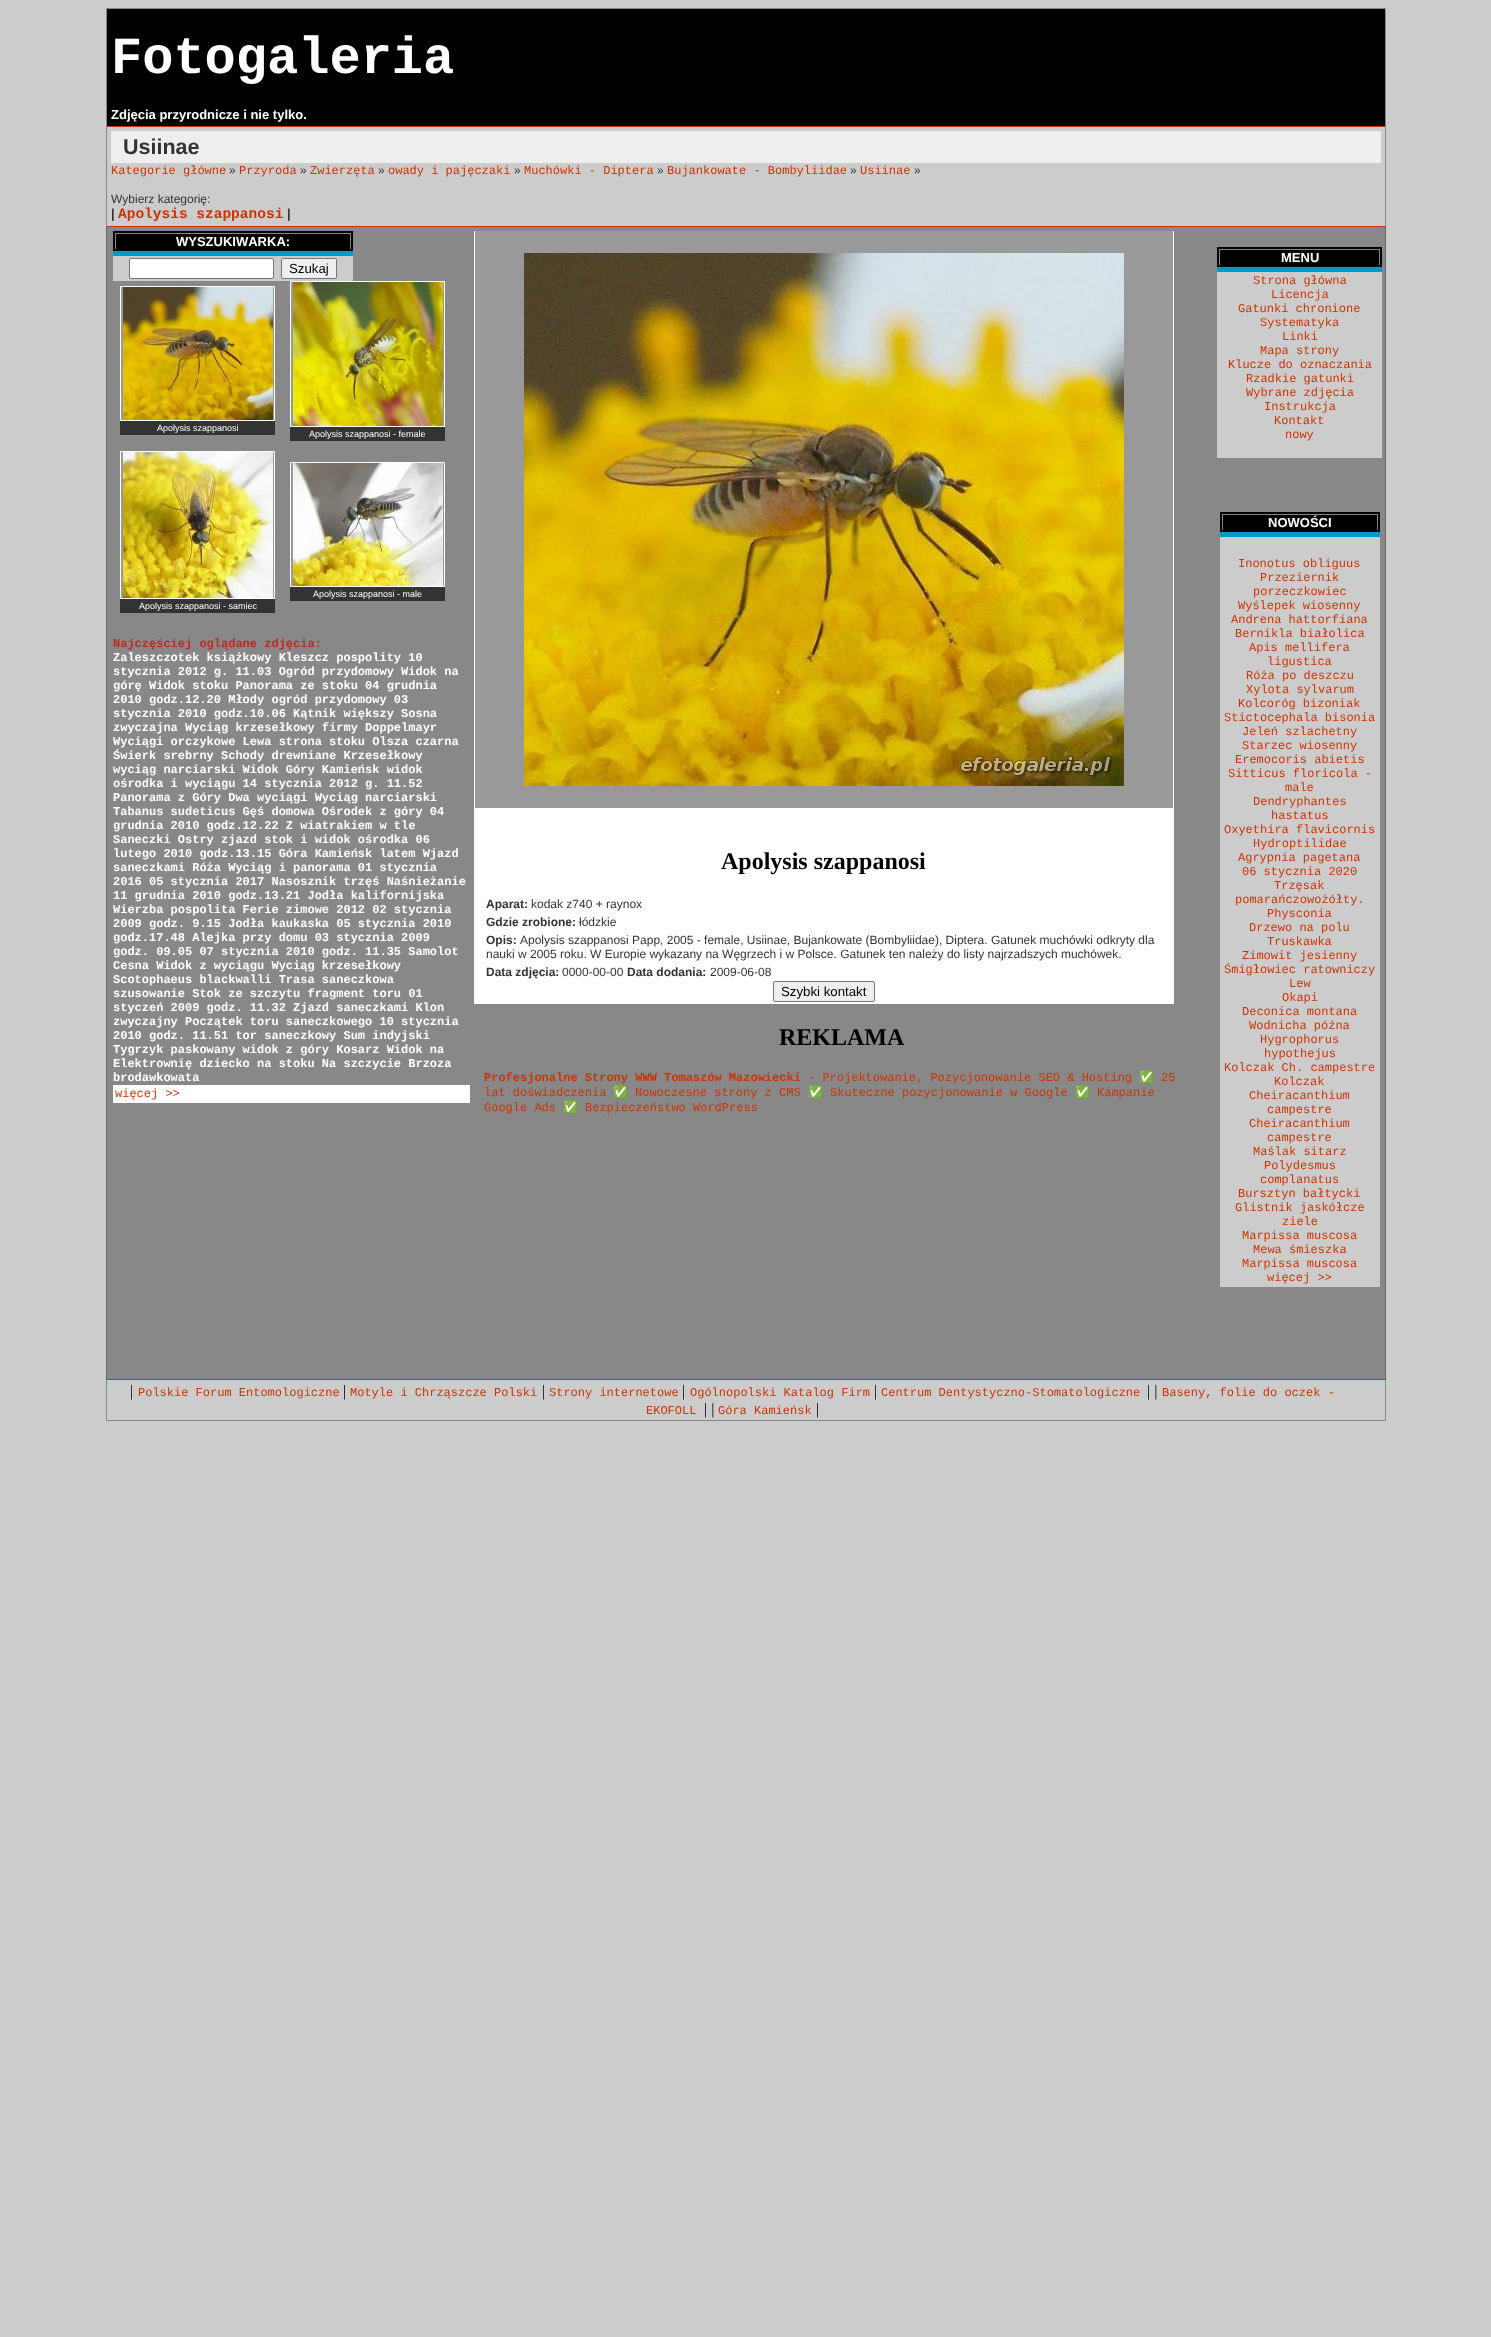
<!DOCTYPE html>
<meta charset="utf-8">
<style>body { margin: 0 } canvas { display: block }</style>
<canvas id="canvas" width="1491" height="2337"></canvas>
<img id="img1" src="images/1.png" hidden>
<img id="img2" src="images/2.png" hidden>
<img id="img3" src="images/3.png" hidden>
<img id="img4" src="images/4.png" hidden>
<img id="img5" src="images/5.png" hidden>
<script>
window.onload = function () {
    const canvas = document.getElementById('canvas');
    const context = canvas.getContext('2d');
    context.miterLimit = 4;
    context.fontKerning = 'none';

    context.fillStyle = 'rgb(204, 204, 204)';
    context.fillRect(0, 0, 1491, 2337);
    context.fillStyle = 'rgb(0, 0, 0)';
    context.fillRect(107, 9, 1278, 117);
    context.fillStyle = 'rgb(136, 136, 136)';
    context.fillRect(106, 8, 1280, 1);
    context.fillRect(1385, 8, 1, 118);
    context.fillRect(106, 8, 1, 118);
    context.fillStyle = 'rgb(204, 51, 0)';
    context.fillRect(106, 126, 1280, 1);
    context.fillStyle = 'rgb(136, 136, 136)';
    context.fillRect(1385, 126, 1, 101);
    context.fillStyle = 'rgb(204, 51, 0)';
    context.fillRect(106, 226, 1280, 1);
    context.fillStyle = 'rgb(136, 136, 136)';
    context.fillRect(106, 126, 1, 101);
    context.fillStyle = 'rgb(238, 238, 238)';
    context.fillRect(111, 131, 1270, 32);
    context.fillStyle = 'rgb(136, 136, 136)';
    context.fillRect(107, 227, 1278, 1152);
    context.fillStyle = 'rgb(102, 102, 102)';
    context.fillRect(1385, 227, 1, 1153);
    context.fillStyle = 'rgb(204, 51, 0)';
    context.fillRect(106, 1379, 1280, 1);
    context.fillStyle = 'rgb(102, 102, 102)';
    context.fillRect(106, 227, 1, 1153);
    context.fillStyle = 'rgb(0, 0, 0)';
    context.fillRect(113, 231, 240, 20);
    context.fillStyle = 'rgb(136, 136, 136)';
    context.fillRect(115, 233, 236, 1);
    context.fillRect(350, 233, 1, 16);
    context.fillRect(115, 233, 1, 16);
    context.fillStyle = 'rgb(0, 153, 204)';
    context.fillRect(113, 251, 240, 5);
    context.fillStyle = 'rgb(204, 204, 204)';
    context.fillRect(113, 256, 240, 25);
    context.fillStyle = 'rgb(255, 255, 255)';
    context.beginPath();
    context.roundRect(129.5, 258.5, 144, 20, 1.5);
    context.fill();
    context.strokeStyle = 'rgb(118, 118, 118)';
    context.stroke();
    context.fillStyle = 'rgb(239, 239, 239)';
    context.beginPath();
    context.roundRect(281.5, 258.5, 55, 20, 1.5);
    context.fill();
    context.stroke();
    context.fillStyle = 'rgb(153, 153, 153)';
    context.beginPath();
    context.rect(120.5, 286.5, 154, 134);
    context.fill();
    context.strokeStyle = 'rgb(255, 255, 255)';
    context.stroke();
    context.drawImage(document.getElementById('img1'), 123, 287, 150, 133);
    context.fillStyle = 'rgb(51, 51, 51)';
    context.fillRect(120, 421, 155, 14);
    context.fillStyle = 'rgb(153, 153, 153)';
    context.beginPath();
    context.rect(290.5, 281.5, 154, 145);
    context.fill();
    context.stroke();
    context.drawImage(document.getElementById('img2'), 293, 282, 150, 144);
    context.fillStyle = 'rgb(51, 51, 51)';
    context.fillRect(290, 427, 155, 14);
    context.fillStyle = 'rgb(153, 153, 153)';
    context.beginPath();
    context.rect(290.5, 462.5, 154, 124);
    context.fill();
    context.stroke();
    context.drawImage(document.getElementById('img3'), 293, 463, 150, 123);
    context.fillStyle = 'rgb(51, 51, 51)';
    context.fillRect(290, 587, 155, 14);
    context.fillStyle = 'rgb(153, 153, 153)';
    context.beginPath();
    context.rect(120.5, 451.5, 154, 147);
    context.fill();
    context.stroke();
    context.drawImage(document.getElementById('img4'), 123, 452, 150, 146);
    context.fillStyle = 'rgb(51, 51, 51)';
    context.fillRect(120, 599, 155, 14);
    context.fillStyle = 'rgb(255, 255, 255)';
    context.fillRect(113, 1085, 357, 18);
    context.fillRect(1173, 231, 1, 773);
    context.fillRect(474, 231, 1, 773);
    context.fillStyle = 'rgb(153, 153, 153)';
    context.fillRect(475, 231, 698, 577);
    context.drawImage(document.getElementById('img5'), 524, 253, 600, 533);
    context.fillStyle = 'rgb(255, 255, 255)';
    context.fillRect(475, 808, 698, 196);
    context.fillStyle = 'rgb(239, 239, 239)';
    context.beginPath();
    context.roundRect(773.5, 981.5, 101, 20, 1.5);
    context.fill();
    context.strokeStyle = 'rgb(118, 118, 118)';
    context.stroke();
    context.fillStyle = 'rgb(0, 0, 0)';
    context.fillRect(1217, 247, 165, 20);
    context.fillStyle = 'rgb(136, 136, 136)';
    context.fillRect(1219, 249, 161, 1);
    context.fillRect(1379, 249, 1, 16);
    context.fillRect(1219, 249, 1, 16);
    context.fillStyle = 'rgb(0, 153, 204)';
    context.fillRect(1217, 267, 165, 5);
    context.fillStyle = 'rgb(204, 204, 204)';
    context.fillRect(1217, 272, 165, 186);
    context.fillStyle = 'rgb(0, 0, 0)';
    context.fillRect(1220, 512, 160, 20);
    context.fillStyle = 'rgb(136, 136, 136)';
    context.fillRect(1222, 514, 156, 1);
    context.fillRect(1377, 514, 1, 16);
    context.fillRect(1222, 514, 1, 16);
    context.fillStyle = 'rgb(0, 153, 204)';
    context.fillRect(1220, 532, 160, 5);
    context.fillStyle = 'rgb(204, 204, 204)';
    context.fillRect(1220, 537, 160, 750);
    context.fillStyle = 'rgb(136, 136, 136)';
    context.fillRect(1385, 1380, 1, 41);
    context.fillRect(106, 1420, 1280, 1);
    context.fillRect(106, 1380, 1, 41);
    context.font = 'bold 52px Liberation Mono';
    context.fillStyle = 'rgb(255, 255, 255)';
    context.fillText('Fotogaleria', 111, 73);
    context.font = 'bold 13px Liberation Sans';
    context.fillText('Zdjęcia przyrodnicze i nie tylko.', 111, 119);
    context.font = 'bold 21.5px Liberation Sans';
    context.fillStyle = 'rgb(51, 51, 51)';
    context.fillText('Usiinae', 123, 154);
    context.font = '12px Liberation Mono';
    context.fillStyle = 'rgb(204, 51, 0)';
    context.fillText('Kategorie główne', 111, 174);
    context.font = '12px Liberation Sans';
    context.fillStyle = 'rgb(51, 51, 51)';
    context.fillText('»', 229, 174);
    context.font = '12px Liberation Mono';
    context.fillStyle = 'rgb(204, 51, 0)';
    context.fillText('Przyroda', 239, 174);
    context.font = '12px Liberation Sans';
    context.fillStyle = 'rgb(51, 51, 51)';
    context.fillText('»', 300, 174);
    context.font = '12px Liberation Mono';
    context.fillStyle = 'rgb(204, 51, 0)';
    context.fillText('Zwierzęta', 310, 174);
    context.font = '12px Liberation Sans';
    context.fillStyle = 'rgb(51, 51, 51)';
    context.fillText('»', 378, 174);
    context.font = '12px Liberation Mono';
    context.fillStyle = 'rgb(204, 51, 0)';
    context.fillText('owady i pajęczaki', 388, 174);
    context.font = '12px Liberation Sans';
    context.fillStyle = 'rgb(51, 51, 51)';
    context.fillText('»', 514, 174);
    context.font = '12px Liberation Mono';
    context.fillStyle = 'rgb(204, 51, 0)';
    context.fillText('Muchówki - Diptera', 524, 174);
    context.font = '12px Liberation Sans';
    context.fillStyle = 'rgb(51, 51, 51)';
    context.fillText('»', 657, 174);
    context.font = '12px Liberation Mono';
    context.fillStyle = 'rgb(204, 51, 0)';
    context.fillText('Bujankowate - Bombyliidae', 667, 174);
    context.font = '12px Liberation Sans';
    context.fillStyle = 'rgb(51, 51, 51)';
    context.fillText('»', 850, 174);
    context.font = '12px Liberation Mono';
    context.fillStyle = 'rgb(204, 51, 0)';
    context.fillText('Usiinae', 860, 174);
    context.font = '12px Liberation Sans';
    context.fillStyle = 'rgb(51, 51, 51)';
    context.fillText('»', 914, 174);
    context.fillText('Wybierz kategorię:', 111, 203);
    context.font = 'bold 13px Liberation Sans';
    context.fillText('|', 111, 218);
    context.font = 'bold 14.5px Liberation Mono';
    context.fillStyle = 'rgb(204, 51, 0)';
    context.fillText('Apolysis szappanosi', 118, 218);
    context.font = 'bold 13px Liberation Sans';
    context.fillStyle = 'rgb(51, 51, 51)';
    context.fillText('|', 287, 218);
    context.fillStyle = 'rgb(255, 255, 255)';
    context.fillText('WYSZUKIWARKA:', 176, 246);
    context.font = '13.25px Liberation Sans';
    context.fillStyle = 'rgb(0, 0, 0)';
    context.fillText('Szukaj', 289, 273);
    context.font = '9px Liberation Sans';
    context.fillStyle = 'rgb(255, 255, 255)';
    context.fillText('Apolysis szappanosi', 157, 431);
    context.fillText('Apolysis szappanosi - female', 309, 437);
    context.fillText('Apolysis szappanosi - male', 313, 597);
    context.fillText('Apolysis szappanosi - samiec', 139, 609);
    context.font = 'bold 12px Liberation Mono';
    context.fillStyle = 'rgb(197, 38, 32)';
    context.fillText('Najczęściej oglądane zdjęcia:', 113, 647);
    context.fillStyle = 'rgb(255, 255, 255)';
    context.fillText('Zaleszczotek książkowy Kleszcz pospolity 10', 113, 661);
    context.fillText('stycznia 2012 g. 11.03 Ogród przydomowy Widok na', 113, 675);
    context.fillText('górę Widok stoku Panorama ze stoku 04 grudnia', 113, 689);
    context.fillText('2010 godz.12.20 Młody ogród przydomowy 03', 113, 703);
    context.fillText('stycznia 2010 godz.10.06 Kątnik większy Sosna', 113, 717);
    context.fillText('zwyczajna Wyciąg krzesełkowy firmy Doppelmayr', 113, 731);
    context.fillText('Wyciągi orczykowe Lewa strona stoku Olsza czarna', 113, 745);
    context.fillText('Świerk srebrny Schody drewniane Krzesełkowy', 113, 759);
    context.fillText('wyciąg narciarski Widok Góry Kamieńsk widok', 113, 773);
    context.fillText('ośrodka i wyciągu 14 stycznia 2012 g. 11.52', 113, 787);
    context.fillText('Panorama z Góry Dwa wyciągi Wyciąg narciarski', 113, 801);
    context.fillText('Tabanus sudeticus Gęś domowa Ośrodek z góry 04', 113, 815);
    context.fillText('grudnia 2010 godz.12.22 Z wiatrakiem w tle', 113, 829);
    context.fillText('Saneczki Ostry zjazd stok i widok ośrodka 06', 113, 843);
    context.fillText('lutego 2010 godz.13.15 Góra Kamieńsk latem Wjazd', 113, 857);
    context.fillText('saneczkami Róża Wyciąg i panorama 01 stycznia', 113, 871);
    context.fillText('2016 05 stycznia 2017 Nasosznik trzęś Naśnieżanie', 113, 885);
    context.fillText('11 grudnia 2010 godz.13.21 Jodła kalifornijska', 113, 899);
    context.fillText('Wierzba pospolita Ferie zimowe 2012 02 stycznia', 113, 913);
    context.fillText('2009 godz. 9.15 Jodła kaukaska 05 stycznia 2010', 113, 927);
    context.fillText('godz.17.48 Alejka przy domu 03 stycznia 2009', 113, 941);
    context.fillText('godz. 09.05 07 stycznia 2010 godz. 11.35 Samolot', 113, 955);
    context.fillText('Cesna Widok z wyciągu Wyciąg krzesełkowy', 113, 969);
    context.fillText('Scotophaeus blackwalli Trasa saneczkowa', 113, 983);
    context.fillText('szusowanie Stok ze szczytu fragment toru 01', 113, 997);
    context.fillText('styczeń 2009 godz. 11.32 Zjazd saneczkami Klon', 113, 1011);
    context.fillText('zwyczajny Początek toru saneczkowego 10 stycznia', 113, 1025);
    context.fillText('2010 godz. 11.51 tor saneczkowy Sum indyjski', 113, 1039);
    context.fillText('Tygrzyk paskowany widok z góry Kosarz Widok na', 113, 1053);
    context.fillText('Elektrownię dziecko na stoku Na szczycie Brzoza', 113, 1067);
    context.fillText('brodawkowata', 113, 1081);
    context.font = '12px Liberation Mono';
    context.fillStyle = 'rgb(204, 51, 0)';
    context.fillText('więcej >>', 115, 1097);
    context.font = 'bold 24px Liberation Serif';
    context.fillStyle = 'rgb(0, 0, 0)';
    context.fillText('Apolysis szappanosi', 721, 869);
    context.font = 'bold 12px Liberation Sans';
    context.fillStyle = 'rgb(51, 51, 51)';
    context.fillText('Aparat:', 486, 908);
    context.font = '12px Liberation Sans';
    context.fillText('kodak z740 + raynox', 531, 908);
    context.font = 'bold 12px Liberation Sans';
    context.fillText('Gdzie zrobione:', 486, 926);
    context.font = '12px Liberation Sans';
    context.fillText('łódzkie', 579, 926);
    context.font = 'bold 12px Liberation Sans';
    context.fillText('Opis:', 486, 944);
    context.font = '12px Liberation Sans';
    context.fillText('Apolysis szappanosi Papp, 2005 - female, Usiinae, Bujankowate (Bombyliidae), Diptera. Gatunek muchówki odkryty dla', 520, 944);
    context.fillText('nauki w 2005 roku. W Europie wykazany na Węgrzech i w Polsce. Gatunek ten należy do listy najrzadszych muchówek.', 486, 958);
    context.font = 'bold 12px Liberation Sans';
    context.fillText('Data zdjęcia:', 486, 976);
    context.font = '12px Liberation Sans';
    context.fillText('0000-00-00', 562, 976);
    context.font = 'bold 12px Liberation Sans';
    context.fillText('Data dodania:', 627, 976);
    context.font = '12px Liberation Sans';
    context.fillText('2009-06-08', 710, 976);
    context.font = '13.25px Liberation Sans';
    context.fillStyle = 'rgb(0, 0, 0)';
    context.fillText('Szybki kontakt', 781, 996);
    context.font = 'bold 24px Liberation Serif';
    context.fillText('REKLAMA', 779, 1045);
    context.font = 'bold 12px Liberation Mono';
    context.fillStyle = 'rgb(204, 51, 0)';
    context.fillText('Profesjonalne Strony WWW Tomaszów Mazowiecki', 484, 1081);
    context.font = '12px Liberation Mono';
    context.fillText('- Projektowanie, Pozycjonowanie SEO & Hosting', 808, 1081);
    context.font = '12px Noto Color Emoji';
    context.fillText('✅', 1139, 1081);
    context.font = '12px Liberation Mono';
    context.fillText('25', 1161, 1081);
    context.fillText('lat doświadczenia', 484, 1096);
    context.font = '12px Noto Color Emoji';
    context.fillText('✅', 613, 1096);
    context.font = '12px Liberation Mono';
    context.fillText('Nowoczesne strony z CMS', 635, 1096);
    context.font = '12px Noto Color Emoji';
    context.fillText('✅', 808, 1096);
    context.font = '12px Liberation Mono';
    context.fillText('Skuteczne pozycjonowanie w Google', 830, 1096);
    context.font = '12px Noto Color Emoji';
    context.fillText('✅', 1075, 1096);
    context.font = '12px Liberation Mono';
    context.fillText('Kampanie', 1097, 1096);
    context.fillText('Google Ads', 484, 1111);
    context.font = '12px Noto Color Emoji';
    context.fillText('✅', 563, 1111);
    context.font = '12px Liberation Mono';
    context.fillText('Bezpieczeństwo WordPress', 585, 1111);
    context.font = 'bold 13px Liberation Sans';
    context.fillStyle = 'rgb(255, 255, 255)';
    context.fillText('MENU', 1281, 262);
    context.font = '12px Liberation Mono';
    context.fillStyle = 'rgb(204, 51, 0)';
    context.fillText('Strona główna', 1253, 284);
    context.fillText('Licencja', 1271, 298);
    context.fillText('Gatunki chronione', 1238, 312);
    context.fillText('Systematyka', 1260, 326);
    context.fillText('Linki', 1282, 340);
    context.fillText('Mapa strony', 1260, 354);
    context.fillText('Klucze do oznaczania', 1228, 368);
    context.fillText('Rzadkie gatunki', 1246, 382);
    context.fillText('Wybrane zdjęcia', 1246, 396);
    context.fillText('Instrukcja', 1264, 410);
    context.fillText('Kontakt', 1274, 424);
    context.fillText('nowy', 1285, 438);
    context.font = 'bold 13px Liberation Sans';
    context.fillStyle = 'rgb(255, 255, 255)';
    context.fillText('NOWOŚCI', 1268, 527);
    context.font = '12px Liberation Mono';
    context.fillStyle = 'rgb(204, 51, 0)';
    context.fillText('Inonotus obliguus', 1238, 567);
    context.fillText('Przeziernik', 1260, 581);
    context.fillText('porzeczkowiec', 1253, 595);
    context.fillText('Wyślepek wiosenny', 1238, 609);
    context.fillText('Andrena hattorfiana', 1231, 623);
    context.fillText('Bernikla białolica', 1235, 637);
    context.fillText('Apis mellifera', 1249, 651);
    context.fillText('ligustica', 1267, 665);
    context.fillText('Róża po deszczu', 1246, 679);
    context.fillText('Xylota sylvarum', 1246, 693);
    context.fillText('Kolcoróg bizoniak', 1238, 707);
    context.fillText('Stictocephala bisonia', 1224, 721);
    context.fillText('Jeleń szlachetny', 1242, 735);
    context.fillText('Starzec wiosenny', 1242, 749);
    context.fillText('Eremocoris abietis', 1235, 763);
    context.fillText('Sitticus floricola -', 1228, 777);
    context.fillText('male', 1285, 791);
    context.fillText('Dendryphantes', 1253, 805);
    context.fillText('hastatus', 1271, 819);
    context.fillText('Oxyethira flavicornis', 1224, 833);
    context.fillText('Hydroptilidae', 1253, 847);
    context.fillText('Agrypnia pagetana', 1238, 861);
    context.fillText('06 stycznia 2020', 1242, 875);
    context.fillText('Trzęsak', 1274, 889);
    context.fillText('pomarańczowożółty.', 1235, 903);
    context.fillText('Physconia', 1267, 917);
    context.fillText('Drzewo na polu', 1249, 931);
    context.fillText('Truskawka', 1267, 945);
    context.fillText('Zimowit jesienny', 1242, 959);
    context.fillText('Śmigłowiec ratowniczy', 1224, 973);
    context.fillText('Lew', 1289, 987);
    context.fillText('Okapi', 1282, 1001);
    context.fillText('Deconica montana', 1242, 1015);
    context.fillText('Wodnicha późna', 1249, 1029);
    context.fillText('Hygrophorus', 1260, 1043);
    context.fillText('hypothejus', 1264, 1057);
    context.fillText('Kolczak Ch. campestre', 1224, 1071);
    context.fillText('Kolczak', 1274, 1085);
    context.fillText('Cheiracanthium', 1249, 1099);
    context.fillText('campestre', 1267, 1113);
    context.fillText('Cheiracanthium', 1249, 1127);
    context.fillText('campestre', 1267, 1141);
    context.fillText('Maślak sitarz', 1253, 1155);
    context.fillText('Polydesmus', 1264, 1169);
    context.fillText('complanatus', 1260, 1183);
    context.fillText('Bursztyn bałtycki', 1238, 1197);
    context.fillText('Glistnik jaskółcze', 1235, 1211);
    context.fillText('ziele', 1282, 1225);
    context.fillText('Marpissa muscosa', 1242, 1239);
    context.fillText('Mewa śmieszka', 1253, 1253);
    context.fillText('Marpissa muscosa', 1242, 1267);
    context.fillText('więcej >>', 1267, 1281);
    context.font = '16px Liberation Serif';
    context.fillStyle = 'rgb(0, 0, 0)';
    context.fillText('|', 130, 1396);
    context.font = '12px Liberation Mono';
    context.fillStyle = 'rgb(204, 51, 0)';
    context.fillText('Polskie Forum Entomologiczne', 138, 1396);
    context.font = '16px Liberation Serif';
    context.fillStyle = 'rgb(0, 0, 0)';
    context.fillText('|', 343, 1396);
    context.font = '12px Liberation Mono';
    context.fillStyle = 'rgb(204, 51, 0)';
    context.fillText('Motyle i Chrząszcze Polski', 350, 1396);
    context.font = '16px Liberation Serif';
    context.fillStyle = 'rgb(0, 0, 0)';
    context.fillText('|', 542, 1396);
    context.font = '12px Liberation Mono';
    context.fillStyle = 'rgb(204, 51, 0)';
    context.fillText('Strony internetowe', 549, 1396);
    context.font = '16px Liberation Serif';
    context.fillStyle = 'rgb(0, 0, 0)';
    context.fillText('|', 682, 1396);
    context.font = '12px Liberation Mono';
    context.fillStyle = 'rgb(204, 51, 0)';
    context.fillText('Ogólnopolski Katalog Firm', 690, 1396);
    context.font = '16px Liberation Serif';
    context.fillStyle = 'rgb(0, 0, 0)';
    context.fillText('|', 874, 1396);
    context.font = '12px Liberation Mono';
    context.fillStyle = 'rgb(204, 51, 0)';
    context.fillText('Centrum Dentystyczno-Stomatologiczne', 881, 1396);
    context.font = '16px Liberation Serif';
    context.fillStyle = 'rgb(0, 0, 0)';
    context.fillText('| |', 1147, 1396);
    context.font = '12px Liberation Mono';
    context.fillStyle = 'rgb(204, 51, 0)';
    context.fillText('Baseny, folie do oczek -', 1162, 1396);
    context.fillText('EKOFOLL', 646, 1414);
    context.font = '16px Liberation Serif';
    context.fillStyle = 'rgb(0, 0, 0)';
    context.fillText('| |', 704, 1414);
    context.font = '12px Liberation Mono';
    context.fillStyle = 'rgb(204, 51, 0)';
    context.fillText('Góra Kamieńsk', 718, 1414);
    context.font = '16px Liberation Serif';
    context.fillStyle = 'rgb(0, 0, 0)';
    context.fillText('|', 816, 1414);
};
</script>
